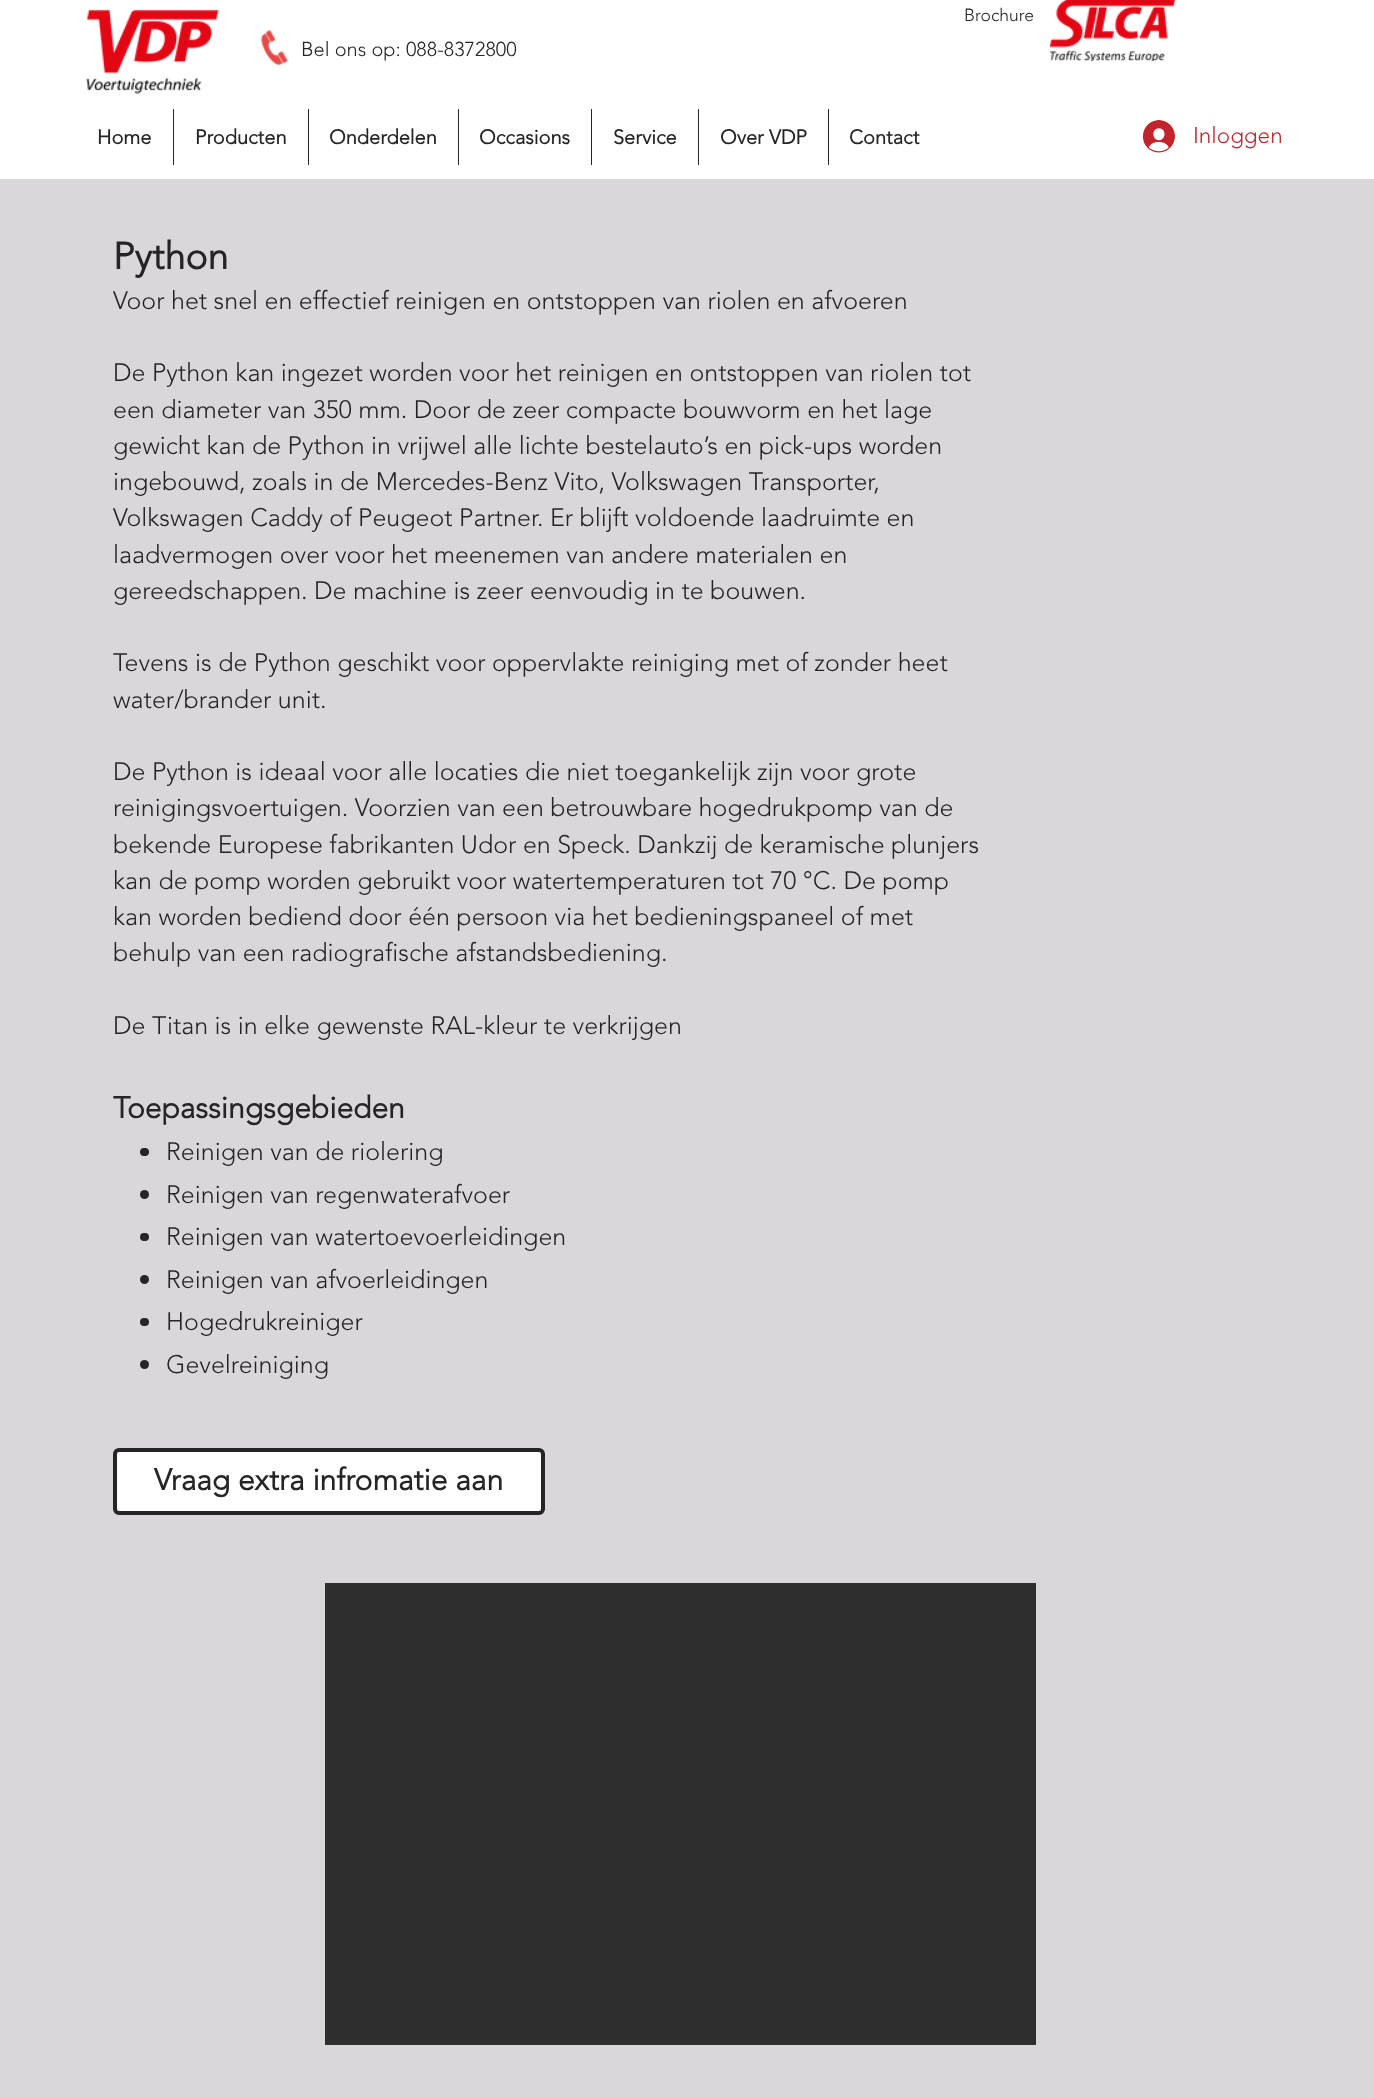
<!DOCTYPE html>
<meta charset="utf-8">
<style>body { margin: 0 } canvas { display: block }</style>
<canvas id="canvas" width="1374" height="2098"></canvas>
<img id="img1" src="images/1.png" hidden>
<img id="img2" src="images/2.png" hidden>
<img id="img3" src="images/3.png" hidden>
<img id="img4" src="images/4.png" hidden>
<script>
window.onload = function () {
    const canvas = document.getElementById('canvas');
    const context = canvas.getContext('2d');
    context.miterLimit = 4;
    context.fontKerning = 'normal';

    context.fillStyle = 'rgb(255, 255, 255)';
    context.fillRect(0, 0, 1374, 2098);
    context.drawImage(document.getElementById('img1'), 86, 9, 133, 85);
    context.drawImage(document.getElementById('img2'), 261, 29, 27, 37);
    context.drawImage(document.getElementById('img3'), 1050, 0, 125, 61);
    context.fillStyle = 'rgb(38, 36, 39)';
    context.fillRect(173, 109, 1, 56);
    context.fillRect(308, 109, 1, 56);
    context.fillRect(458, 109, 1, 56);
    context.fillRect(591, 109, 1, 56);
    context.fillRect(698, 109, 1, 56);
    context.fillRect(828, 109, 1, 56);
    context.drawImage(document.getElementById('img4'), 1143, 120, 32, 33);
    context.fillStyle = 'rgb(217, 215, 218)';
    context.fillRect(0, 179, 1374, 1919);
    context.fillStyle = 'rgb(38, 36, 39)';
    context.beginPath();
    context.roundRect(140, 1148, 9, 8, 4);
    context.fill();
    context.beginPath();
    context.arc(144.5, 1194.5, 4.5, 0, 2 * Math.PI);
    context.fill();
    context.beginPath();
    context.roundRect(140, 1233, 9, 8, 4);
    context.fill();
    context.beginPath();
    context.arc(144.5, 1279.5, 4.5, 0, 2 * Math.PI);
    context.fill();
    context.beginPath();
    context.roundRect(140, 1318, 9, 8, 4);
    context.fill();
    context.beginPath();
    context.arc(144.5, 1364.5, 4.5, 0, 2 * Math.PI);
    context.fill();
    context.fillStyle = 'rgb(255, 255, 255)';
    context.beginPath();
    context.roundRect(115, 1450, 428, 63, 4);
    context.fill();
    context.strokeStyle = 'rgb(38, 36, 39)';
    context.lineWidth = 4;
    context.stroke();
    context.fillStyle = 'rgb(47, 46, 46)';
    context.fillRect(325, 1583, 711, 462);
    context.font = '300 20px "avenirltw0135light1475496"';
    context.fillStyle = 'rgb(38, 36, 39)';
    context.fillText('Bel ons op: 088-8372800', 301, 56);
    context.font = '300 17.5px "avenirltw0135light1475496"';
    context.fillText('Brochure', 964, 21);
    context.font = 'bold 20px "avenirltw0135light1475496"';
    context.fillText('Home', 97, 144);
    context.fillText('Producten', 195, 144);
    context.fillText('Onderdelen', 329, 144);
    context.fillText('Occasions', 479, 144);
    context.fillText('Service', 613, 144);
    context.fillText('Over VDP', 720, 144);
    context.fillText('Contact', 849, 144);
    context.font = '300 22.5px "avenirltw0135light1475496"';
    context.fillStyle = 'rgb(193, 37, 43)';
    context.fillText('Inloggen', 1193, 143);
    context.font = 'bold 37.5px "avenirltw0135light1475496"';
    context.fillStyle = 'rgb(38, 36, 39)';
    context.fillText('Python', 113, 269);
    context.font = '300 25px "avenirltw0135light1475496"';
    context.fillText('Voor het snel en effectief reinigen en ontstoppen van riolen en afvoeren', 113, 309);
    context.fillText('De Python kan ingezet worden voor het reinigen en ontstoppen van riolen tot', 113, 381);
    context.fillText('een diameter van 350 mm. Door de zeer compacte bouwvorm en het lage', 113, 418);
    context.fillText('gewicht kan de Python in vrijwel alle lichte bestelauto’s en pick-ups worden', 113, 454);
    context.fillText('ingebouwd, zoals in de Mercedes-Benz Vito, Volkswagen Transporter,', 113, 490);
    context.fillText('Volkswagen Caddy of Peugeot Partner. Er blijft voldoende laadruimte en', 113, 526);
    context.fillText('laadvermogen over voor het meenemen van andere materialen en', 113, 563);
    context.fillText('gereedschappen. De machine is zeer eenvoudig in te bouwen.', 113, 599);
    context.fillText('Tevens is de Python geschikt voor oppervlakte reiniging met of zonder heet', 113, 671);
    context.fillText('water/brander unit.', 113, 708);
    context.fillText('De Python is ideaal voor alle locaties die niet toegankelijk zijn voor grote', 113, 780);
    context.fillText('reinigingsvoertuigen. Voorzien van een betrouwbare hogedrukpomp van de', 113, 816);
    context.fillText('bekende Europese fabrikanten Udor en Speck. Dankzij de keramische plunjers', 113, 853);
    context.fillText('kan de pomp worden gebruikt voor watertemperaturen tot 70 °C. De pomp', 113, 889);
    context.fillText('kan worden bediend door één persoon via het bedieningspaneel of met', 113, 925);
    context.fillText('behulp van een radiografische afstandsbediening.', 113, 961);
    context.fillText('De Titan is in elke gewenste RAL-kleur te verkrijgen', 113, 1034);
    context.font = 'bold 30px "avenirltw0135light1475496"';
    context.fillText('Toepassingsgebieden', 113, 1118);
    context.font = '300 25px "avenirltw0135light1475496"';
    context.fillText('Reinigen van de riolering', 166, 1160);
    context.fillText('Reinigen van regenwaterafvoer', 166, 1203);
    context.fillText('Reinigen van watertoevoerleidingen', 166, 1245);
    context.fillText('Reinigen van afvoerleidingen', 166, 1288);
    context.fillText('Hogedrukreiniger', 166, 1330);
    context.fillText('Gevelreiniging', 166, 1373);
    context.font = 'bold 30px "avenirltw0135light1475496"';
    context.fillText('Vraag extra infromatie aan', 154, 1490);
};
</script>
